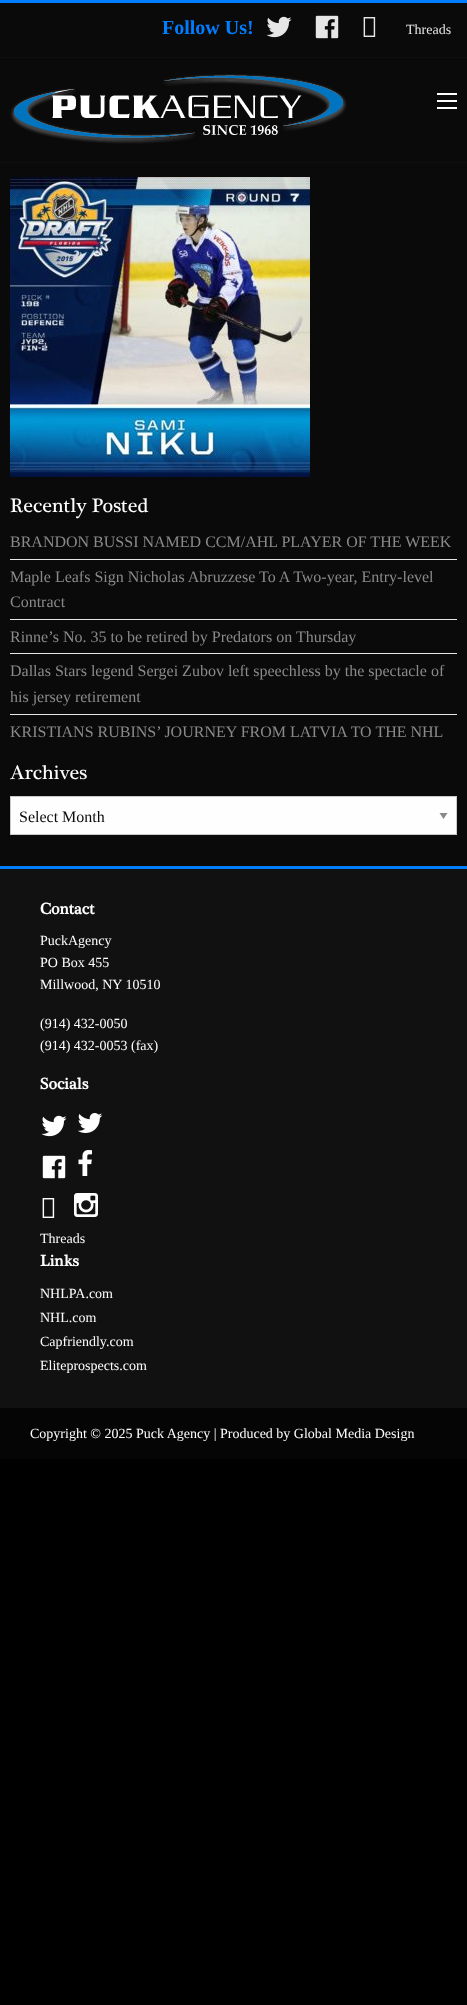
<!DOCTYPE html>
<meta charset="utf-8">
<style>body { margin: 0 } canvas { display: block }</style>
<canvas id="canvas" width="467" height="2005"></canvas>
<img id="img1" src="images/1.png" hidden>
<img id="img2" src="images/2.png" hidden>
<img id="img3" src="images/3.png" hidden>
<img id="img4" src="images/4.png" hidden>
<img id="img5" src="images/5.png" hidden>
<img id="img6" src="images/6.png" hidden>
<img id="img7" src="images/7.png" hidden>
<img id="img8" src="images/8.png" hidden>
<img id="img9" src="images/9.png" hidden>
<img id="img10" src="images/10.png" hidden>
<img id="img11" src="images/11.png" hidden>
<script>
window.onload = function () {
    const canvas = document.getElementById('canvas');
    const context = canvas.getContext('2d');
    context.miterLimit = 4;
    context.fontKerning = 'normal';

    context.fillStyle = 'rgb(0, 0, 0)';
    context.fillRect(0, 0, 467, 2005);
    context.fillStyle = 'rgb(10, 10, 10)';
    context.fillRect(0, 3, 467, 863);
    context.fillStyle = 'rgb(0, 126, 255)';
    context.fillRect(0, 0, 467, 3);
    context.drawImage(document.getElementById('img1'), 266, 16, 26, 22);
    context.drawImage(document.getElementById('img2'), 315, 15, 24, 24);
    context.drawImage(document.getElementById('img3'), 363, 17, 13, 20);
    context.fillStyle = 'rgb(15, 15, 15)';
    context.fillRect(0, 57, 467, 1);
    context.fillRect(0, 162, 467, 1);
    context.drawImage(document.getElementById('img4'), 10, 74, 337, 70);
    context.fillStyle = 'rgb(254, 254, 254)';
    context.fillRect(437, 107, 20, 2);
    context.fillRect(437, 100, 20, 2);
    context.fillRect(437, 93, 20, 2);
    context.drawImage(document.getElementById('img5'), 10, 177, 300, 300);
    context.fillStyle = 'rgb(230, 230, 230)';
    context.fillRect(10, 559, 447, 1);
    context.fillRect(10, 619, 447, 1);
    context.fillRect(10, 653, 447, 1);
    context.fillRect(10, 714, 447, 1);
    context.fillStyle = 'rgb(254, 254, 254)';
    context.fillRect(11, 797, 445, 37);
    context.fillStyle = 'rgb(138, 138, 138)';
    context.beginPath();
    context.moveTo(439.5, 813);
    context.lineTo(447.5, 813);
    context.lineTo(443.5, 819);
    context.closePath();
    context.fill();
    context.strokeStyle = 'rgb(202, 202, 202)';
    context.strokeRect(10.5, 796.5, 446, 38);
    context.fillStyle = 'rgb(17, 17, 17)';
    context.fillRect(0, 869, 467, 539);
    context.fillStyle = 'rgb(0, 126, 255)';
    context.fillRect(0, 866, 467, 3);
    context.drawImage(document.getElementById('img6'), 41, 1115, 26, 22);
    context.drawImage(document.getElementById('img7'), 77, 1113, 26, 20);
    context.drawImage(document.getElementById('img8'), 42, 1155, 24, 24);
    context.drawImage(document.getElementById('img9'), 78, 1150, 14, 26);
    context.drawImage(document.getElementById('img10'), 42, 1198, 13, 20);
    context.drawImage(document.getElementById('img11'), 74, 1193, 24, 24);
    context.fillStyle = 'rgb(5, 5, 5)';
    context.fillRect(0, 1408, 467, 51);
    context.font = 'bold 20px Liberation Serif';
    context.fillStyle = 'rgb(0, 126, 255)';
    context.fillText('Follow Us!', 162, 34);
    context.font = '14px Liberation Serif';
    context.fillStyle = 'rgb(230, 230, 230)';
    context.fillText('Threads', 406, 34);
    context.font = '20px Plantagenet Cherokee';
    context.fillStyle = 'rgb(254, 254, 254)';
    context.fillText('Recently Posted', 10, 512);
    context.font = '16px Liberation Serif';
    context.fillStyle = 'rgb(138, 138, 138)';
    context.fillText('BRANDON BUSSI NAMED CCM/AHL PLAYER OF THE WEEK', 10, 547);
    context.fillText('Maple Leafs Sign Nicholas Abruzzese To A Two-year, Entry-level', 10, 582);
    context.fillText('Contract', 10, 607);
    context.fillText('Rinne’s No. 35 to be retired by Predators on Thursday', 10, 642);
    context.fillText('Dallas Stars legend Sergei Zubov left speechless by the spectacle of', 10, 676);
    context.fillText('his jersey retirement', 10, 702);
    context.fillText('KRISTIANS RUBINS’ JOURNEY FROM LATVIA TO THE NHL', 10, 737);
    context.font = '20px Plantagenet Cherokee';
    context.fillStyle = 'rgb(254, 254, 254)';
    context.fillText('Archives', 10, 779);
    context.font = '16px Liberation Serif';
    context.fillStyle = 'rgb(10, 10, 10)';
    context.fillText('Select Month', 19, 822);
    context.font = 'bold 16px Plantagenet Cherokee';
    context.fillStyle = 'rgb(254, 254, 254)';
    context.fillText('Contact', 40, 914);
    context.font = '14px Liberation Serif';
    context.fillText('PuckAgency', 40, 945);
    context.fillText('PO Box 455', 40, 967);
    context.fillText('Millwood, NY 10510', 40, 989);
    context.fillText('(914) 432-0050', 40, 1028);
    context.fillText('(914) 432-0053 (fax)', 40, 1050);
    context.font = 'bold 16px Plantagenet Cherokee';
    context.fillText('Socials', 40, 1089);
    context.font = '14px Liberation Serif';
    context.fillText('Threads', 40, 1243);
    context.font = 'bold 16px Plantagenet Cherokee';
    context.fillText('Links', 40, 1266);
    context.font = '14px Liberation Serif';
    context.fillText('NHLPA.com', 40, 1298);
    context.fillText('NHL.com', 40, 1322);
    context.fillText('Capfriendly.com', 40, 1346);
    context.fillText('Eliteprospects.com', 40, 1370);
    context.fillText('Copyright © 2025 Puck Agency | Produced by Global Media Design', 30, 1438);
};
</script>
